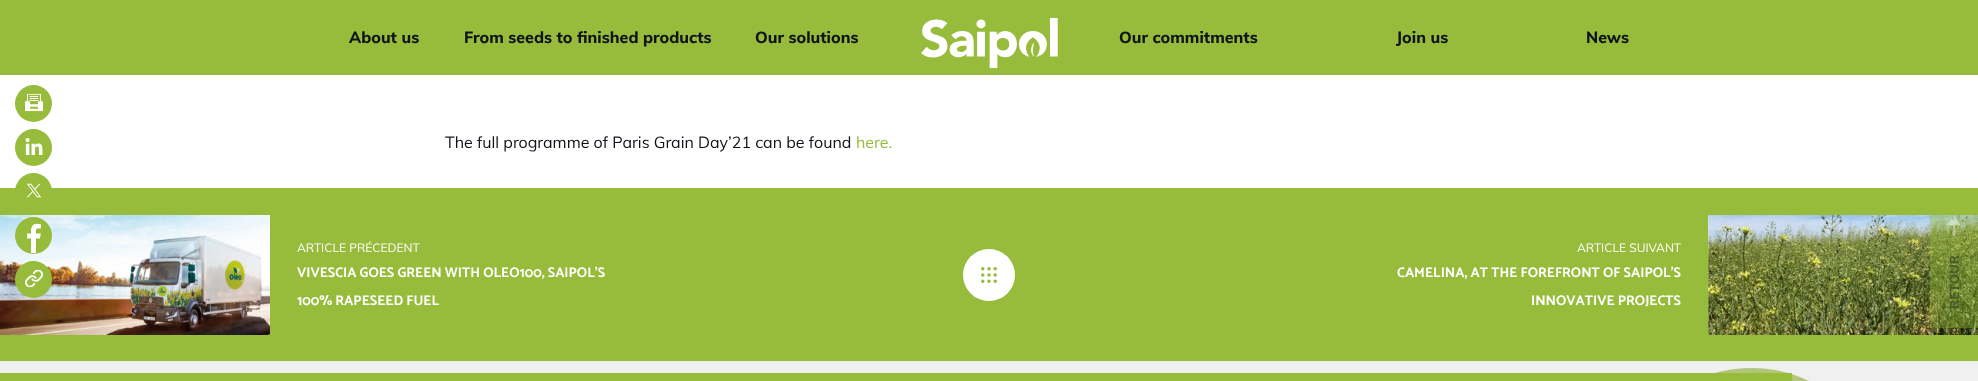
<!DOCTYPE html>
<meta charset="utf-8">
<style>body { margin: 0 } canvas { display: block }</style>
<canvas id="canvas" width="1978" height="381"></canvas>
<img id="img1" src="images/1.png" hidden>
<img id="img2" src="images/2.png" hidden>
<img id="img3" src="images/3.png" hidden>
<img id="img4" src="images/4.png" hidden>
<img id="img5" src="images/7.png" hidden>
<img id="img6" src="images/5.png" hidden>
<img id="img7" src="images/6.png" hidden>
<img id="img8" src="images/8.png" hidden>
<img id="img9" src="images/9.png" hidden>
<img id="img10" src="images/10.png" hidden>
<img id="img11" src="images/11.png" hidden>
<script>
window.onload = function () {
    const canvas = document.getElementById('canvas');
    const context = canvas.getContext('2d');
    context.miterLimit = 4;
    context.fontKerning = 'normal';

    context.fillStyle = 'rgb(255, 255, 255)';
    context.fillRect(0, 0, 1978, 381);
    context.fillStyle = 'rgb(151, 187, 58)';
    context.fillRect(0, 0, 1978, 75);
    context.drawImage(document.getElementById('img1'), 921, 18, 137, 51);
    context.beginPath();
    context.arc(33.5, 103.5, 18.5, 0, 2 * Math.PI);
    context.fill();
    context.drawImage(document.getElementById('img2'), 25, 93, 18, 19);
    context.beginPath();
    context.arc(33.5, 147.5, 18.5, 0, 2 * Math.PI);
    context.fill();
    context.drawImage(document.getElementById('img3'), 25, 138, 18, 17);
    context.fillRect(0, 188, 1978, 173);
    context.beginPath();
    context.arc(33.5, 191.5, 18.5, 0, 2 * Math.PI);
    context.fill();
    context.drawImage(document.getElementById('img4'), 26, 183, 16, 15);
    context.drawImage(document.getElementById('img5'), 0, 215, 270, 120);
    context.beginPath();
    context.arc(33.5, 235.5, 18.5, 0, 2 * Math.PI);
    context.fill();
    context.drawImage(document.getElementById('img6'), 27, 223, 14, 31);
    context.beginPath();
    context.arc(33.5, 279.5, 18.5, 0, 2 * Math.PI);
    context.fill();
    context.drawImage(document.getElementById('img7'), 25, 269, 18, 19);
    context.fillStyle = 'rgb(255, 255, 255)';
    context.beginPath();
    context.arc(989, 275, 26, 0, 2 * Math.PI);
    context.fill();
    context.drawImage(document.getElementById('img8'), 981, 267, 16, 16);
    context.drawImage(document.getElementById('img9'), 1708, 215, 270, 120);
    context.fillStyle = 'rgb(241, 240, 240)';
    context.fillRect(0, 361, 1978, 20);
    context.drawImage(document.getElementById('img10'), 1715, 368, 94, 13);
    context.fillStyle = 'rgba(151, 187, 58, 0.4)';
    context.fillRect(1930, 215, 48, 113);
    context.drawImage(document.getElementById('img11'), 1947, 216, 14, 20);
    context.fillStyle = 'rgb(151, 187, 58)';
    context.fillRect(0, 373, 1792, 8);
    context.font = '800 16px Muli';
    context.fillStyle = 'rgb(15, 20, 26)';
    context.fillText('About us', 349, 43);
    context.fillText('From seeds to finished products', 464, 43);
    context.fillText('Our solutions', 755, 43);
    context.fillText('Our commitments', 1119, 43);
    context.fillText('Join us', 1396, 43);
    context.fillText('News', 1586, 43);
    context.font = '16px Muli';
    context.fillText('The full programme of Paris Grain Day’21 can be found', 445, 148);
    context.fillStyle = 'rgb(151, 187, 58)';
    context.fillText('here.', 856, 148);
    context.font = '12px Muli';
    context.fillStyle = 'rgb(255, 255, 255)';
    context.fillText('ARTICLE PRÉCEDENT', 297, 252);
    context.font = 'bold 14px Catamaran';
    context.fillText('VIVESCIA GOES GREEN WITH OLEO100, SAIPOL’S', 297, 277);
    context.fillText('100% RAPESEED FUEL', 297, 305);
    context.font = '12px Muli';
    context.fillText('ARTICLE SUIVANT', 1577, 252);
    context.font = 'bold 14px Catamaran';
    context.fillText('CAMELINA, AT THE FOREFRONT OF SAIPOL’S', 1397, 277);
    context.fillText('INNOVATIVE PROJECTS', 1531, 305);
    context.font = '800 13px Muli';
    context.fillStyle = 'rgb(75, 90, 42)';
    context.save();
    context.translate(1959, 309);
    context.rotate(-90 * Math.PI / 180);
    context.fillText('RETOUR', 0, 0);
    context.restore();
};
</script>
